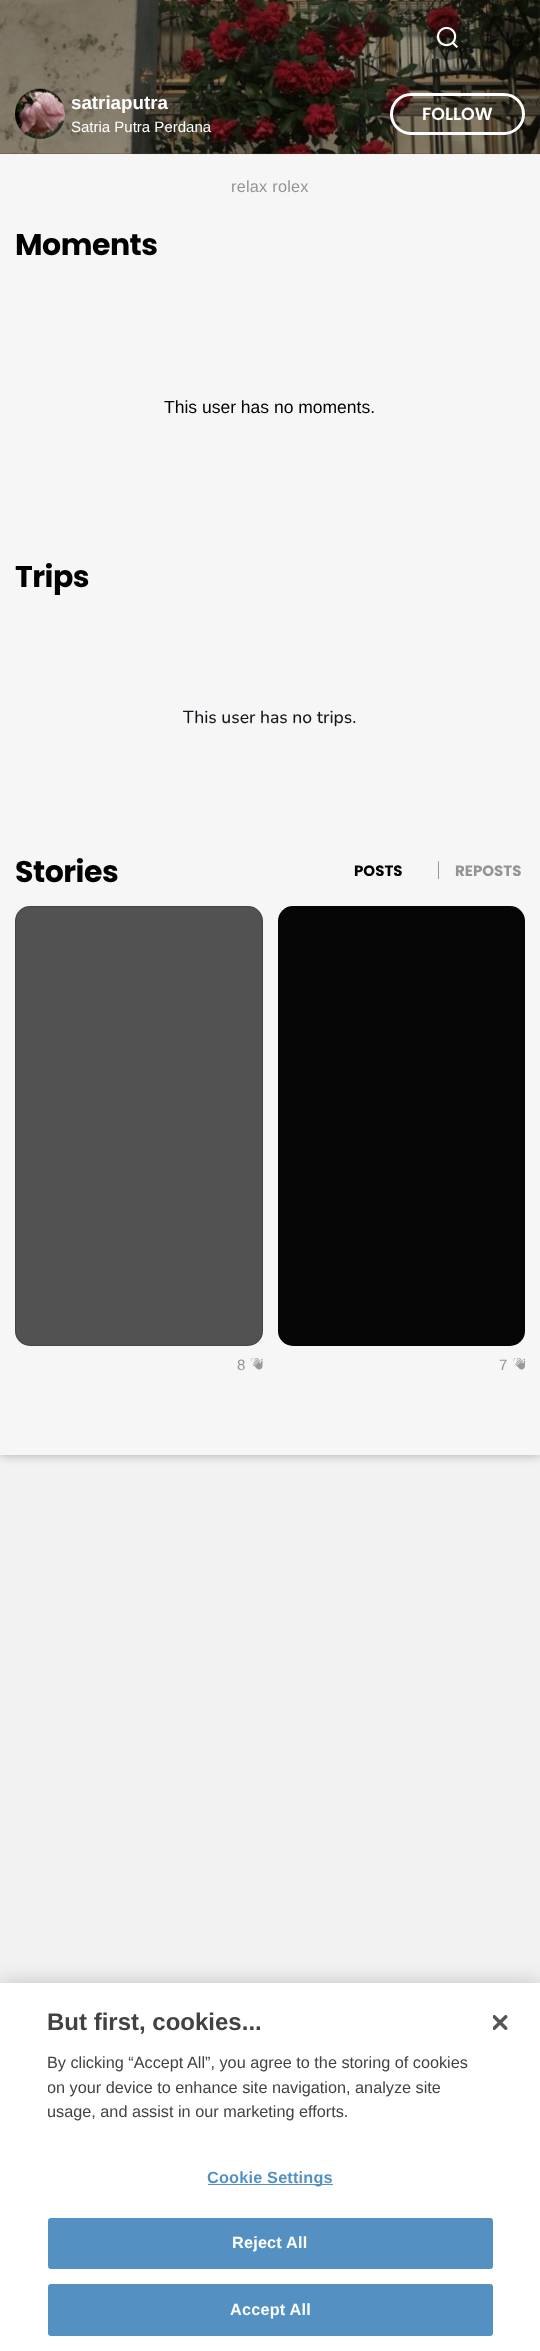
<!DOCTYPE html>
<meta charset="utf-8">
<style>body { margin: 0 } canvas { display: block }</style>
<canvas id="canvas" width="540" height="2351"></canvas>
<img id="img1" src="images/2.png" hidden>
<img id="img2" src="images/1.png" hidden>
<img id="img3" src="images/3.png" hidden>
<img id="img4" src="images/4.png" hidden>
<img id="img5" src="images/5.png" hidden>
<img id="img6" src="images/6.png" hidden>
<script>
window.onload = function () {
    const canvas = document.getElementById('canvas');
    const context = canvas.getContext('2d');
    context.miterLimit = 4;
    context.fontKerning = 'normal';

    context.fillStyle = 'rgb(242, 242, 242)';
    context.fillRect(0, 0, 540, 2351);
    context.fillStyle = 'rgba(0, 0, 0, 0.25)';
    context.filter = 'blur(5px)';
    context.beginPath();
    context.rect(0, 1, 540, 1455);
    context.fill();
    context.filter = 'none';
    context.fillStyle = 'rgb(76, 65, 53)';
    context.fillRect(0, 0, 540, 154);
    context.fillStyle = 'rgb(246, 246, 246)';
    context.fillRect(0, 154, 540, 1301);
    context.drawImage(document.getElementById('img1'), 0, 0, 540, 155);
    context.fillStyle = 'rgba(0, 0, 0, 0.36)';
    context.beginPath();
    context.arc(447.5, 37.5, 22.5, 0, 2 * Math.PI);
    context.fill();
    context.drawImage(document.getElementById('img2'), 436, 26, 22, 22);
    context.beginPath();
    context.arc(502.5, 37.5, 22.5, 0, 2 * Math.PI);
    context.fill();
    context.fillStyle = 'rgb(101, 78, 74)';
    context.beginPath();
    context.arc(40, 114, 25, 0, 2 * Math.PI);
    context.fill();
    context.drawImage(document.getElementById('img3'), 15, 88, 50, 51);
    context.beginPath();
    context.roundRect(391.5, 94.5, 132, 39, 19.5);
    context.strokeStyle = 'rgb(255, 255, 255)';
    context.lineWidth = 3;
    context.stroke();
    context.fillStyle = 'rgb(153, 153, 153)';
    context.beginPath();
    context.roundRect(438, 861, 1, 18, 0.5);
    context.fill();
    context.fillStyle = 'rgb(82, 82, 82)';
    context.beginPath();
    context.roundRect(15, 906, 248, 440, 15);
    context.fill();
    context.beginPath();
    context.roundRect(15.5, 906.5, 247, 439, 14.5);
    context.strokeStyle = 'rgba(0, 0, 0, 0.17)';
    context.lineWidth = 1;
    context.stroke();
    context.drawImage(document.getElementById('img4'), 250, 1358, 13, 12);
    context.fillStyle = 'rgb(6, 6, 6)';
    context.beginPath();
    context.roundRect(278, 906, 247, 440, 15);
    context.fill();
    context.beginPath();
    context.roundRect(278.5, 906.5, 246, 439, 14.5);
    context.stroke();
    context.drawImage(document.getElementById('img5'), 513, 1358, 12, 12);
    context.fillStyle = 'rgba(0, 0, 0, 0.2)';
    context.filter = 'blur(11px)';
    context.beginPath();
    context.rect(0, 1983, 540, 368);
    context.fill();
    context.filter = 'none';
    context.fillStyle = 'rgb(255, 255, 255)';
    context.fillRect(0, 1983, 540, 368);
    context.fillStyle = 'rgb(84, 145, 194)';
    context.fillRect(208, 2184, 125, 1);
    context.beginPath();
    context.roundRect(48.5, 2218.5, 444, 50, 2);
    context.fill();
    context.strokeStyle = 'rgb(84, 145, 194)';
    context.stroke();
    context.beginPath();
    context.roundRect(48.5, 2284.5, 444, 51, 2);
    context.fill();
    context.stroke();
    context.drawImage(document.getElementById('img6'), 493, 2015, 15, 15);
    context.font = 'bold 18.75px Liberation Sans';
    context.fillStyle = 'rgb(255, 255, 255)';
    context.fillText('satriaputra', 71, 109);
    context.font = '15px Liberation Sans';
    context.fillText('Satria Putra Perdana', 71, 132);
    context.font = '600 17.5px Poppins';
    context.fillText('FOLLOW', 422, 120);
    context.letterSpacing = '0.25px';
    context.font = '16.25px Liberation Sans';
    context.fillStyle = 'rgb(148, 148, 148)';
    context.fillText('relax rolex', 231, 192);
    context.letterSpacing = '-0.5px';
    context.font = 'bold 30px Poppins';
    context.fillStyle = 'rgb(0, 0, 0)';
    context.fillText('Moments', 15, 255);
    context.letterSpacing = '0px';
    context.font = '17.5px Liberation Sans';
    context.fillText('This user has no moments.', 164, 413);
    context.letterSpacing = '-0.5px';
    context.font = 'bold 30px Poppins';
    context.fillText('Trips', 15, 587);
    context.letterSpacing = '0px';
    context.font = '500 17.5px Nunito';
    context.fillStyle = 'rgb(18, 24, 30)';
    context.fillText('This user has no trips.', 183, 723);
    context.letterSpacing = '-0.5px';
    context.font = 'bold 30px Poppins';
    context.fillStyle = 'rgb(0, 0, 0)';
    context.fillText('Stories', 15, 882);
    context.letterSpacing = '0px';
    context.font = 'bold 15px Poppins';
    context.fillText('POSTS', 354, 876);
    context.fillStyle = 'rgb(148, 148, 148)';
    context.fillText('REPOSTS', 455, 876);
    context.font = '15px Liberation Sans';
    context.fillText('8', 237, 1370);
    context.fillText('7', 499, 1370);
    context.font = 'bold 24px Liberation Sans';
    context.fillStyle = 'rgb(66, 66, 66)';
    context.fillText('But first, cookies...', 47, 2030);
    context.font = '16.25px Liberation Sans';
    context.fillText('By clicking “Accept All”, you agree to the storing of cookies', 47, 2068);
    context.save();
    context.beginPath();
    context.rect(48, 2008, 421, 132);
    context.clip();
    context.fillText('on your device to enhance site navigation, analyze site', 47, 2093);
    context.restore();
    context.fillText('usage, and assist in our marketing efforts.', 47, 2117);
    context.letterSpacing = '0.2px';
    context.font = 'bold 16.25px Liberation Sans';
    context.fillStyle = 'rgb(84, 145, 194)';
    context.fillText('Cookie Settings', 207, 2183);
    context.fillStyle = 'rgb(255, 255, 255)';
    context.fillText('Reject All', 232, 2248);
    context.fillText('Accept All', 230, 2315);
};
</script>
